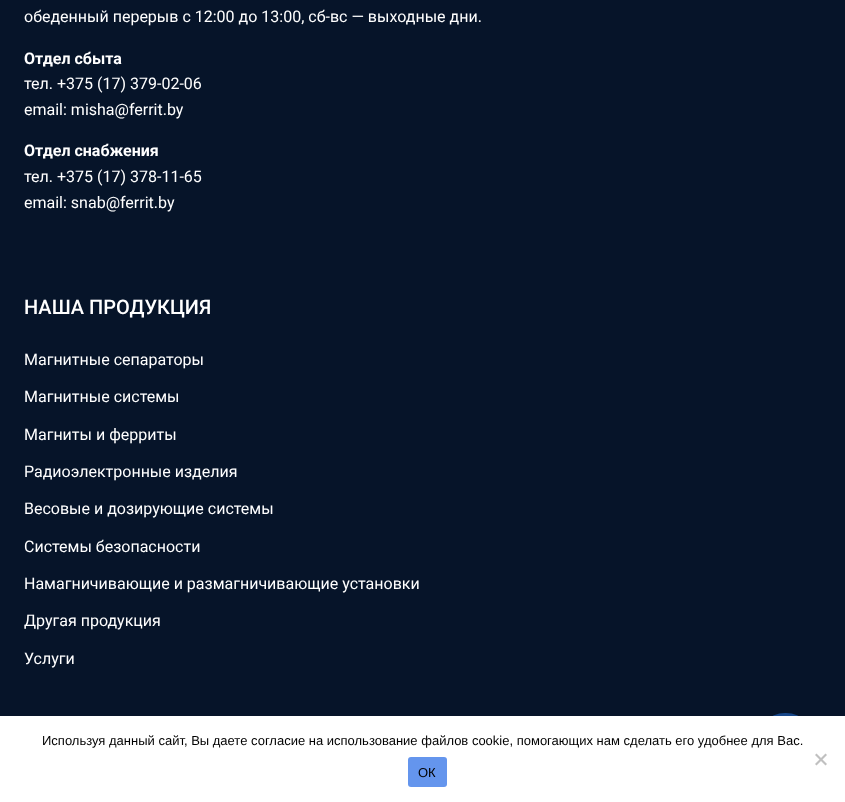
<!DOCTYPE html>
<meta charset="utf-8">
<style>body { margin: 0 } canvas { display: block }</style>
<canvas id="canvas" width="845" height="802"></canvas>
<script>
window.onload = function () {
    const canvas = document.getElementById('canvas');
    const context = canvas.getContext('2d');
    context.miterLimit = 4;
    context.fontKerning = 'normal';

    context.fillStyle = 'rgb(6, 20, 41)';
    context.fillRect(0, 0, 845, 802);
    context.fillStyle = 'rgb(23, 71, 138)';
    context.beginPath();
    context.roundRect(756, 713, 59, 58, 29);
    context.fill();
    context.fillStyle = 'rgb(255, 255, 255)';
    context.fillRect(0, 716, 845, 86);
    context.fillStyle = 'rgb(192, 192, 192)';
    context.beginPath();
    context.moveTo(825.5, 753.5);
    context.lineTo(827, 755);
    context.lineTo(816.5, 765.5);
    context.lineTo(815, 764);
    context.closePath();
    context.fill();
    context.beginPath();
    context.moveTo(815, 755);
    context.lineTo(816.5, 753.5);
    context.lineTo(827, 764);
    context.lineTo(825.5, 765.5);
    context.closePath();
    context.fill();
    context.fillStyle = 'rgb(100, 149, 237)';
    context.beginPath();
    context.roundRect(408, 757, 39, 30, 3);
    context.fill();
    context.font = '16px Roboto';
    context.fillStyle = 'rgb(255, 255, 255)';
    context.fillText('обеденный перерыв с 12:00 до 13:00, сб-вс — выходные дни.', 24, 22);
    context.font = 'bold 16px Roboto';
    context.fillText('Отдел сбыта', 24, 64);
    context.font = '16px Roboto';
    context.fillText('тел. +375 (17) 379-02-06', 24, 89);
    context.fillText('email: misha@ferrit.by', 24, 115);
    context.font = 'bold 16px Roboto';
    context.fillText('Отдел снабжения', 24, 156);
    context.font = '16px Roboto';
    context.fillText('тел. +375 (17) 378-11-65', 24, 182);
    context.fillText('email: snab@ferrit.by', 24, 208);
    context.font = '500 20px Roboto';
    context.fillText('НАША ПРОДУКЦИЯ', 24, 314);
    context.font = '16px Roboto';
    context.fillText('Магнитные сепараторы', 24, 365);
    context.fillText('Магнитные системы', 24, 402);
    context.fillText('Магниты и ферриты', 24, 440);
    context.fillText('Радиоэлектронные изделия', 24, 477);
    context.fillText('Весовые и дозирующие системы', 24, 514);
    context.fillText('Системы безопасности', 24, 552);
    context.fillText('Намагничивающие и размагничивающие установки', 24, 589);
    context.fillText('Другая продукция', 24, 626);
    context.fillText('Услуги', 24, 664);
    context.font = '13px Liberation Sans';
    context.fillStyle = 'rgb(0, 0, 0)';
    context.fillText('Используя данный сайт, Вы даете согласие на использование файлов cookie, помогающих нам сделать его удобнее для Вас.', 42, 745);
    context.fillText('ОК', 418, 777);
};
</script>
